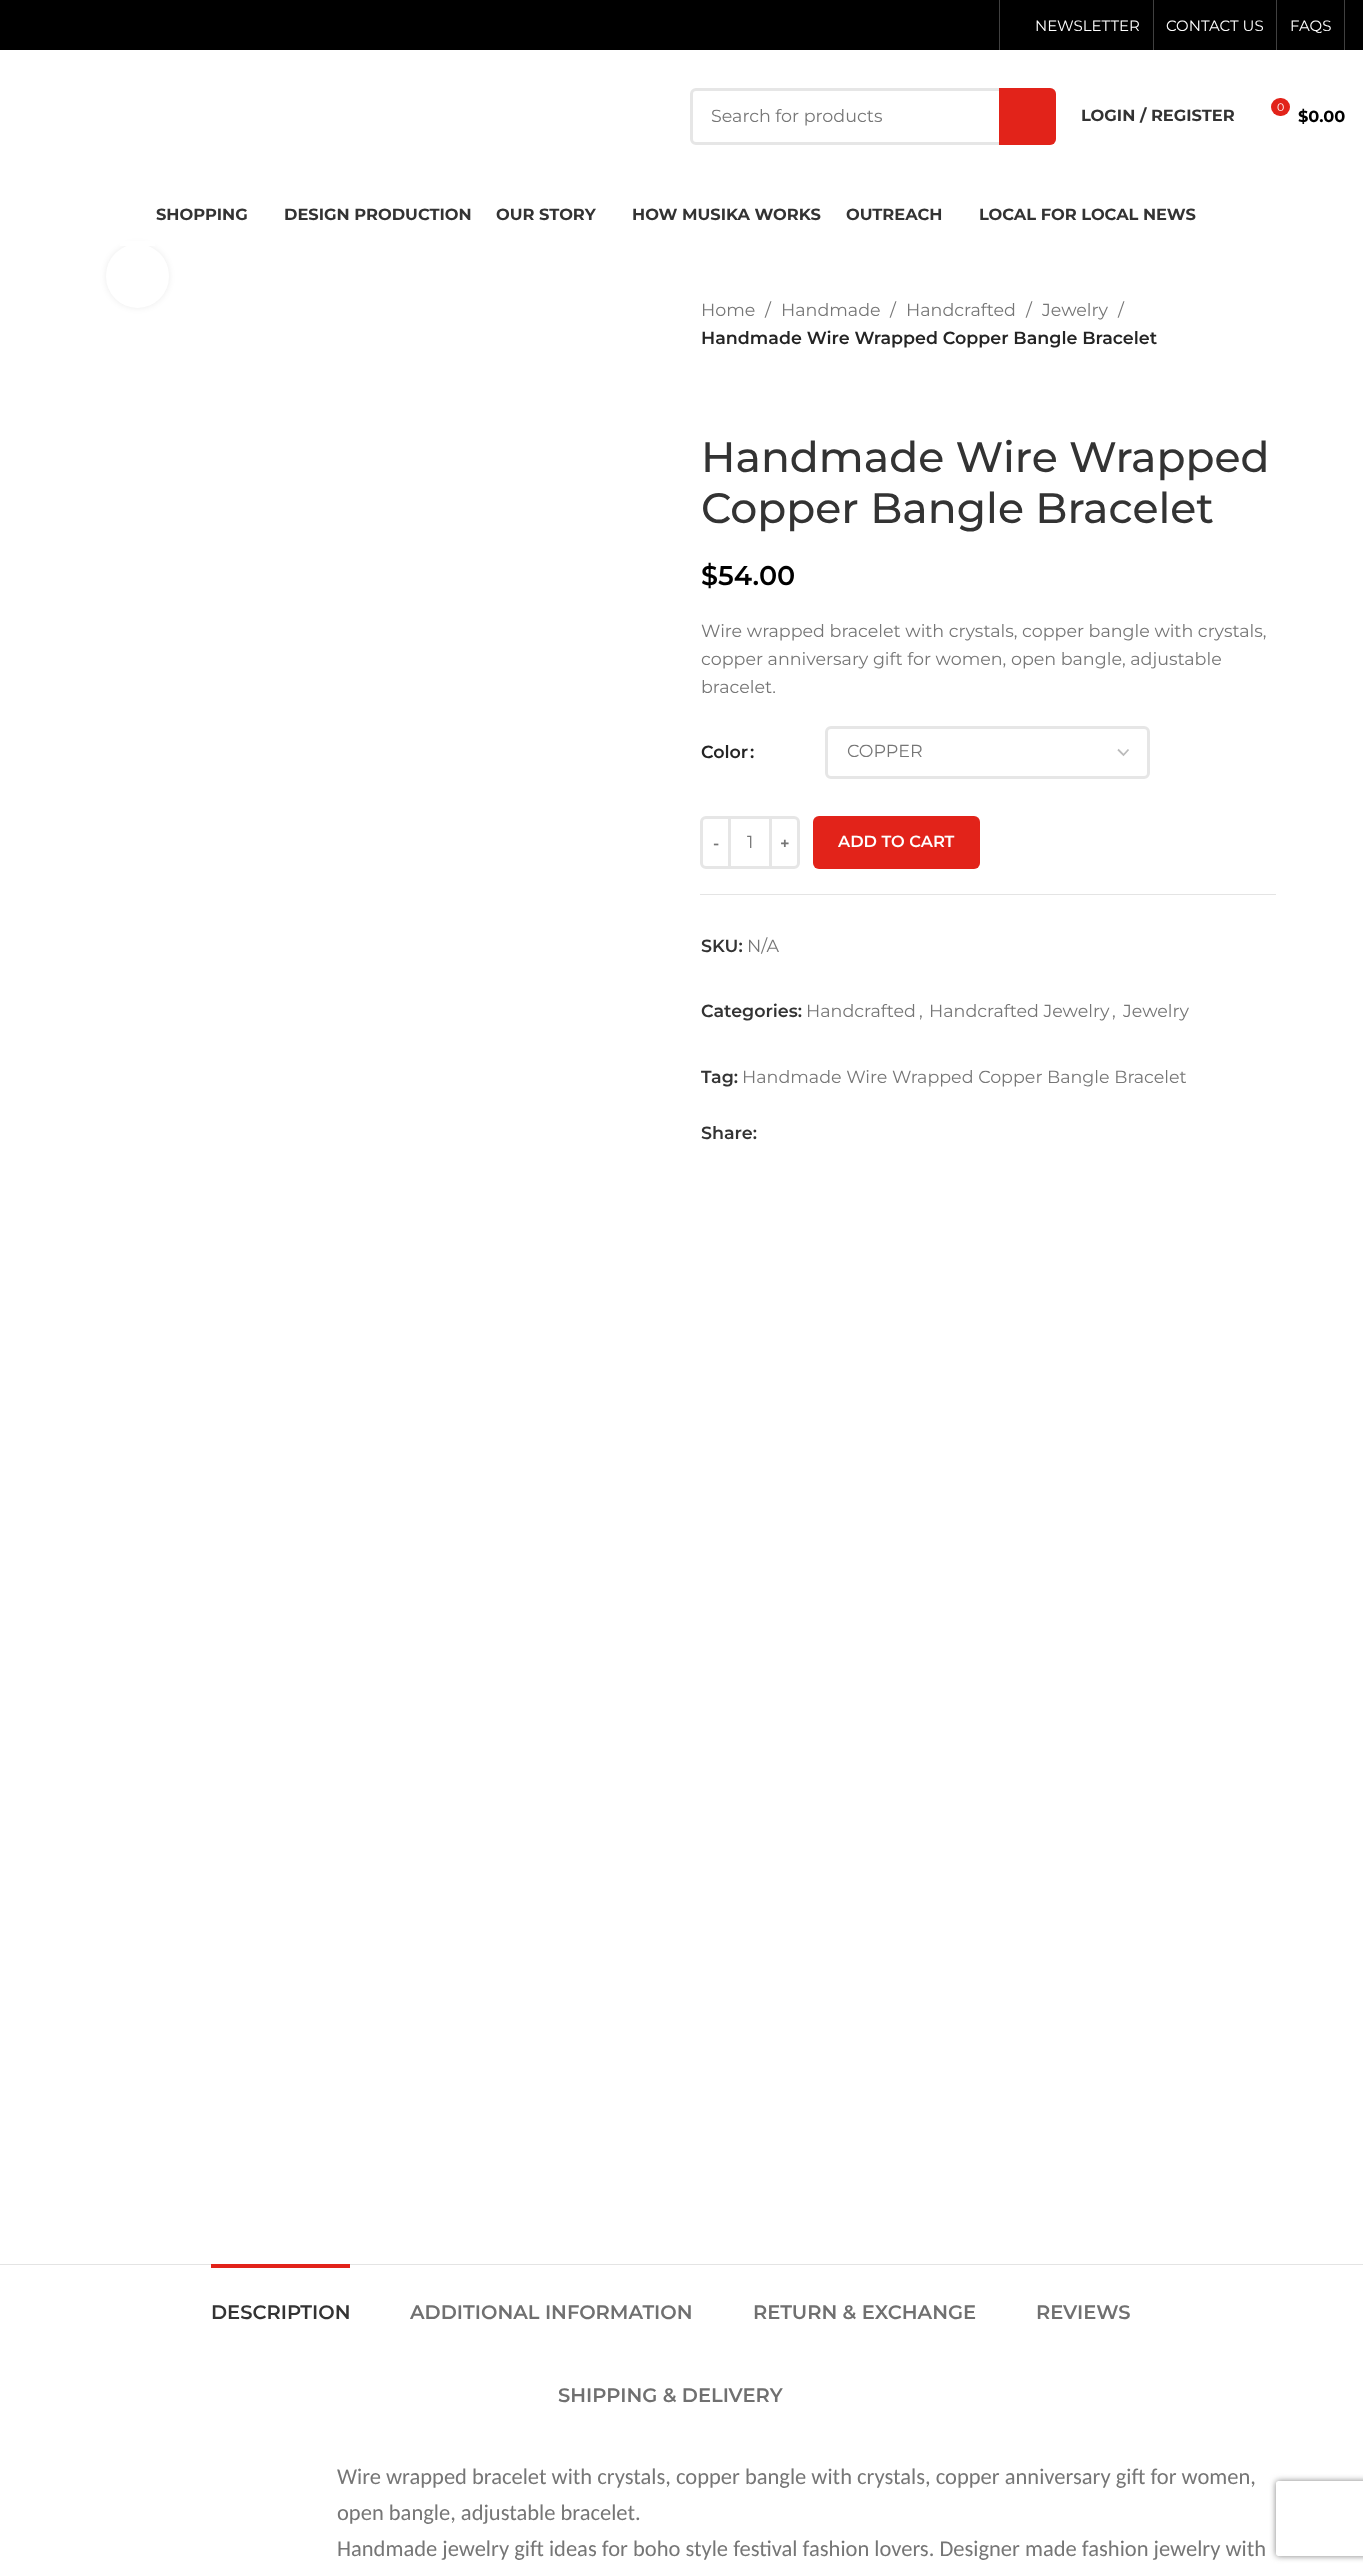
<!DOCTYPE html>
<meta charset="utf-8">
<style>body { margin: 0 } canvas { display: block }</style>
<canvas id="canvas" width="1363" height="2573"></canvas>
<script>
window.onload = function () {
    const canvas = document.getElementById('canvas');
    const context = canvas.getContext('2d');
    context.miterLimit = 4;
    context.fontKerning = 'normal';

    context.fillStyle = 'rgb(255, 255, 255)';
    context.fillRect(0, 0, 1363, 2573);
    context.fillStyle = 'rgb(0, 0, 0)';
    context.fillRect(0, 0, 1363, 50);
    context.fillStyle = 'rgb(64, 64, 64)';
    context.fillRect(999, 0, 1, 50);
    context.fillRect(1153, 0, 1, 50);
    context.fillRect(1276, 0, 1, 50);
    context.fillRect(1344, 0, 1, 50);
    context.beginPath();
    context.roundRect(691.5, 89.5, 363, 54, 4.5);
    context.strokeStyle = 'rgb(230, 230, 230)';
    context.lineWidth = 3;
    context.stroke();
    context.fillStyle = 'rgb(226, 35, 26)';
    context.beginPath();
    context.roundRect(999, 88, 57, 57, [0, 6, 6, 0]);
    context.fill();
    context.beginPath();
    context.roundRect(1271, 98, 19, 18, 9);
    context.fill();
    context.fillStyle = 'rgba(0, 0, 0, 0.08)';
    context.filter = 'blur(3px)';
    context.beginPath();
    context.roundRect(106, 244, 63, 64, 31.5);
    context.fill();
    context.filter = 'none';
    context.fillStyle = 'rgb(255, 255, 255)';
    context.beginPath();
    context.roundRect(106, 244, 63, 64, 31.5);
    context.fill();
    context.fillRect(120, 241, 35, 5);
    context.beginPath();
    context.moveTo(1118, 749.5);
    context.lineTo(1123.5, 755);
    context.lineTo(1128.5, 749.5);
    context.strokeStyle = 'rgb(187, 187, 187)';
    context.lineWidth = 1.8;
    context.stroke();
    context.beginPath();
    context.roundRect(826.5, 727.5, 322, 50, 4.5);
    context.strokeStyle = 'rgb(230, 230, 230)';
    context.lineWidth = 3;
    context.stroke();
    context.beginPath();
    context.roundRect(701.5, 817.5, 28, 50, [4.5, 0, 0, 4.5]);
    context.stroke();
    context.fillStyle = 'rgb(230, 230, 230)';
    context.fillRect(731, 816, 38, 3);
    context.fillRect(731, 866, 38, 3);
    context.beginPath();
    context.roundRect(770.5, 817.5, 28, 50, [0, 4.5, 4.5, 0]);
    context.stroke();
    context.fillStyle = 'rgb(226, 35, 26)';
    context.beginPath();
    context.roundRect(813, 816, 167, 53, 6);
    context.fill();
    context.fillStyle = 'rgb(228, 228, 228)';
    context.fillRect(700, 894, 576, 1);
    context.fillRect(0, 2264, 1363, 1);
    context.fillStyle = 'rgb(226, 35, 26)';
    context.fillRect(211, 2264, 139, 4);
    context.save();
    context.beginPath();
    context.moveTo(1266, 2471);
    context.lineTo(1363, 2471);
    context.lineTo(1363, 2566);
    context.lineTo(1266, 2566);
    context.closePath();
    context.moveTo(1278.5, 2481);
    context.lineTo(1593.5, 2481);
    context.bezierCurveTo(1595, 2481, 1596, 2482, 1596, 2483.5);
    context.lineTo(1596, 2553.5);
    context.bezierCurveTo(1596, 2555, 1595, 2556, 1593.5, 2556);
    context.lineTo(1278.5, 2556);
    context.bezierCurveTo(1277, 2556, 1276, 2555, 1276, 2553.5);
    context.lineTo(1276, 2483.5);
    context.bezierCurveTo(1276, 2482, 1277, 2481, 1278.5, 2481);
    context.closePath();
    context.clip('evenodd');
    context.fillStyle = 'rgb(128, 128, 128)';
    context.filter = 'blur(3px)';
    context.beginPath();
    context.roundRect(1276, 2481, 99, 75, 2.5);
    context.fill();
    context.filter = 'none';
    context.restore();
    context.font = '15px Montserrat';
    context.fillStyle = 'rgb(255, 255, 255)';
    context.fillText('NEWSLETTER', 1035, 31);
    context.fillText('CONTACT US', 1166, 31);
    context.fillText('FAQS', 1290, 31);
    context.font = '17.5px Montserrat';
    context.fillStyle = 'rgb(118, 118, 118)';
    context.fillText('Search for products', 711, 122);
    context.font = 'bold 16.25px Montserrat';
    context.fillStyle = 'rgb(51, 51, 51)';
    context.fillText('LOGIN / REGISTER', 1081, 121);
    context.font = '11px Montserrat';
    context.fillStyle = 'rgb(255, 255, 255)';
    context.fillText('0', 1277, 111);
    context.font = 'bold 16.25px Montserrat';
    context.fillStyle = 'rgb(0, 0, 0)';
    context.fillText('$0.00', 1298, 122);
    context.fillStyle = 'rgb(51, 51, 51)';
    context.fillText('SHOPPING', 156, 220);
    context.fillText('DESIGN PRODUCTION', 284, 220);
    context.fillText('OUR STORY', 496, 220);
    context.fillText('HOW MUSIKA WORKS', 632, 220);
    context.fillText('OUTREACH', 846, 220);
    context.fillText('LOCAL FOR LOCAL NEWS', 979, 220);
    context.font = '17.5px Montserrat';
    context.fillStyle = 'rgb(118, 118, 118)';
    context.fillText('Home', 701, 316);
    context.fillText('/', 765, 316);
    context.fillText('Handmade', 781, 316);
    context.fillText('/', 890, 316);
    context.fillText('Handcrafted', 906, 316);
    context.fillText('/', 1026, 316);
    context.fillText('Jewelry', 1042, 316);
    context.fillText('/', 1118, 316);
    context.font = '600 17.5px Montserrat';
    context.fillStyle = 'rgb(36, 36, 36)';
    context.fillText('Handmade Wire Wrapped Copper Bangle Bracelet', 701, 344);
    context.font = '500 42.5px Montserrat';
    context.fillStyle = 'rgb(51, 51, 51)';
    context.fillText('Handmade Wire Wrapped', 701, 472);
    context.fillText('Copper Bangle Bracelet', 701, 523);
    context.font = '600 27px Montserrat';
    context.fillStyle = 'rgb(0, 0, 0)';
    context.fillText('$54.00', 701, 585);
    context.font = '17.5px Montserrat';
    context.fillStyle = 'rgb(118, 118, 118)';
    context.fillText('Wire wrapped bracelet with crystals, copper bangle with crystals,', 701, 637);
    context.fillText('copper anniversary gift for women, open bangle, adjustable', 701, 665);
    context.fillText('bracelet.', 701, 693);
    context.font = '600 17.5px Montserrat';
    context.fillStyle = 'rgb(36, 36, 36)';
    context.fillText('Color', 701, 758);
    context.fillText(':', 750, 758);
    context.font = '17.5px Montserrat';
    context.fillStyle = 'rgb(118, 118, 118)';
    context.fillText('COPPER', 847, 757);
    context.font = '600 16.25px Montserrat';
    context.fillText('-', 713, 849);
    context.font = '17.5px Montserrat';
    context.fillText('1', 747, 848);
    context.font = '600 16.25px Montserrat';
    context.fillText('+', 780, 849);
    context.fillStyle = 'rgb(255, 255, 255)';
    context.fillText('ADD TO CART', 838, 847);
    context.font = '600 17.5px Montserrat';
    context.fillStyle = 'rgb(51, 51, 51)';
    context.fillText('SKU:', 701, 952);
    context.font = '17.5px Montserrat';
    context.fillStyle = 'rgb(118, 118, 118)';
    context.fillText('N/A', 747, 952);
    context.font = '600 17.5px Montserrat';
    context.fillStyle = 'rgb(51, 51, 51)';
    context.fillText('Categories:', 701, 1017);
    context.font = '17.5px Montserrat';
    context.fillStyle = 'rgb(118, 118, 118)';
    context.fillText('Handcrafted', 806, 1017);
    context.fillText(',', 919, 1017);
    context.fillText('Handcrafted Jewelry', 929, 1017);
    context.fillText(',', 1112, 1017);
    context.fillText('Jewelry', 1123, 1017);
    context.font = '600 17.5px Montserrat';
    context.fillStyle = 'rgb(51, 51, 51)';
    context.fillText('Tag:', 701, 1083);
    context.font = '17.5px Montserrat';
    context.fillStyle = 'rgb(118, 118, 118)';
    context.fillText('Handmade Wire Wrapped Copper Bangle Bracelet', 742, 1083);
    context.font = '600 17.5px Montserrat';
    context.fillStyle = 'rgb(51, 51, 51)';
    context.fillText('Share:', 701, 1139);
    context.font = '600 19.5px Montserrat';
    context.fillText('DESCRIPTION', 211, 2319);
    context.fillStyle = 'rgb(112, 112, 112)';
    context.fillText('ADDITIONAL INFORMATION', 410, 2319);
    context.fillText('RETURN & EXCHANGE', 753, 2319);
    context.fillText('REVIEWS', 1036, 2319);
    context.fillText('SHIPPING & DELIVERY', 558, 2402);
    context.font = '22.5px Carlito';
    context.fillStyle = 'rgb(118, 118, 118)';
    context.fillText('Wire wrapped bracelet with crystals, copper bangle with crystals, copper anniversary gift for women,', 337, 2484);
    context.fillText('open bangle, adjustable bracelet.', 337, 2520);
    context.fillText('Handmade jewelry gift ideas for boho style festival fashion lovers. Designer made fashion jewelry with', 337, 2556);
};
</script>
